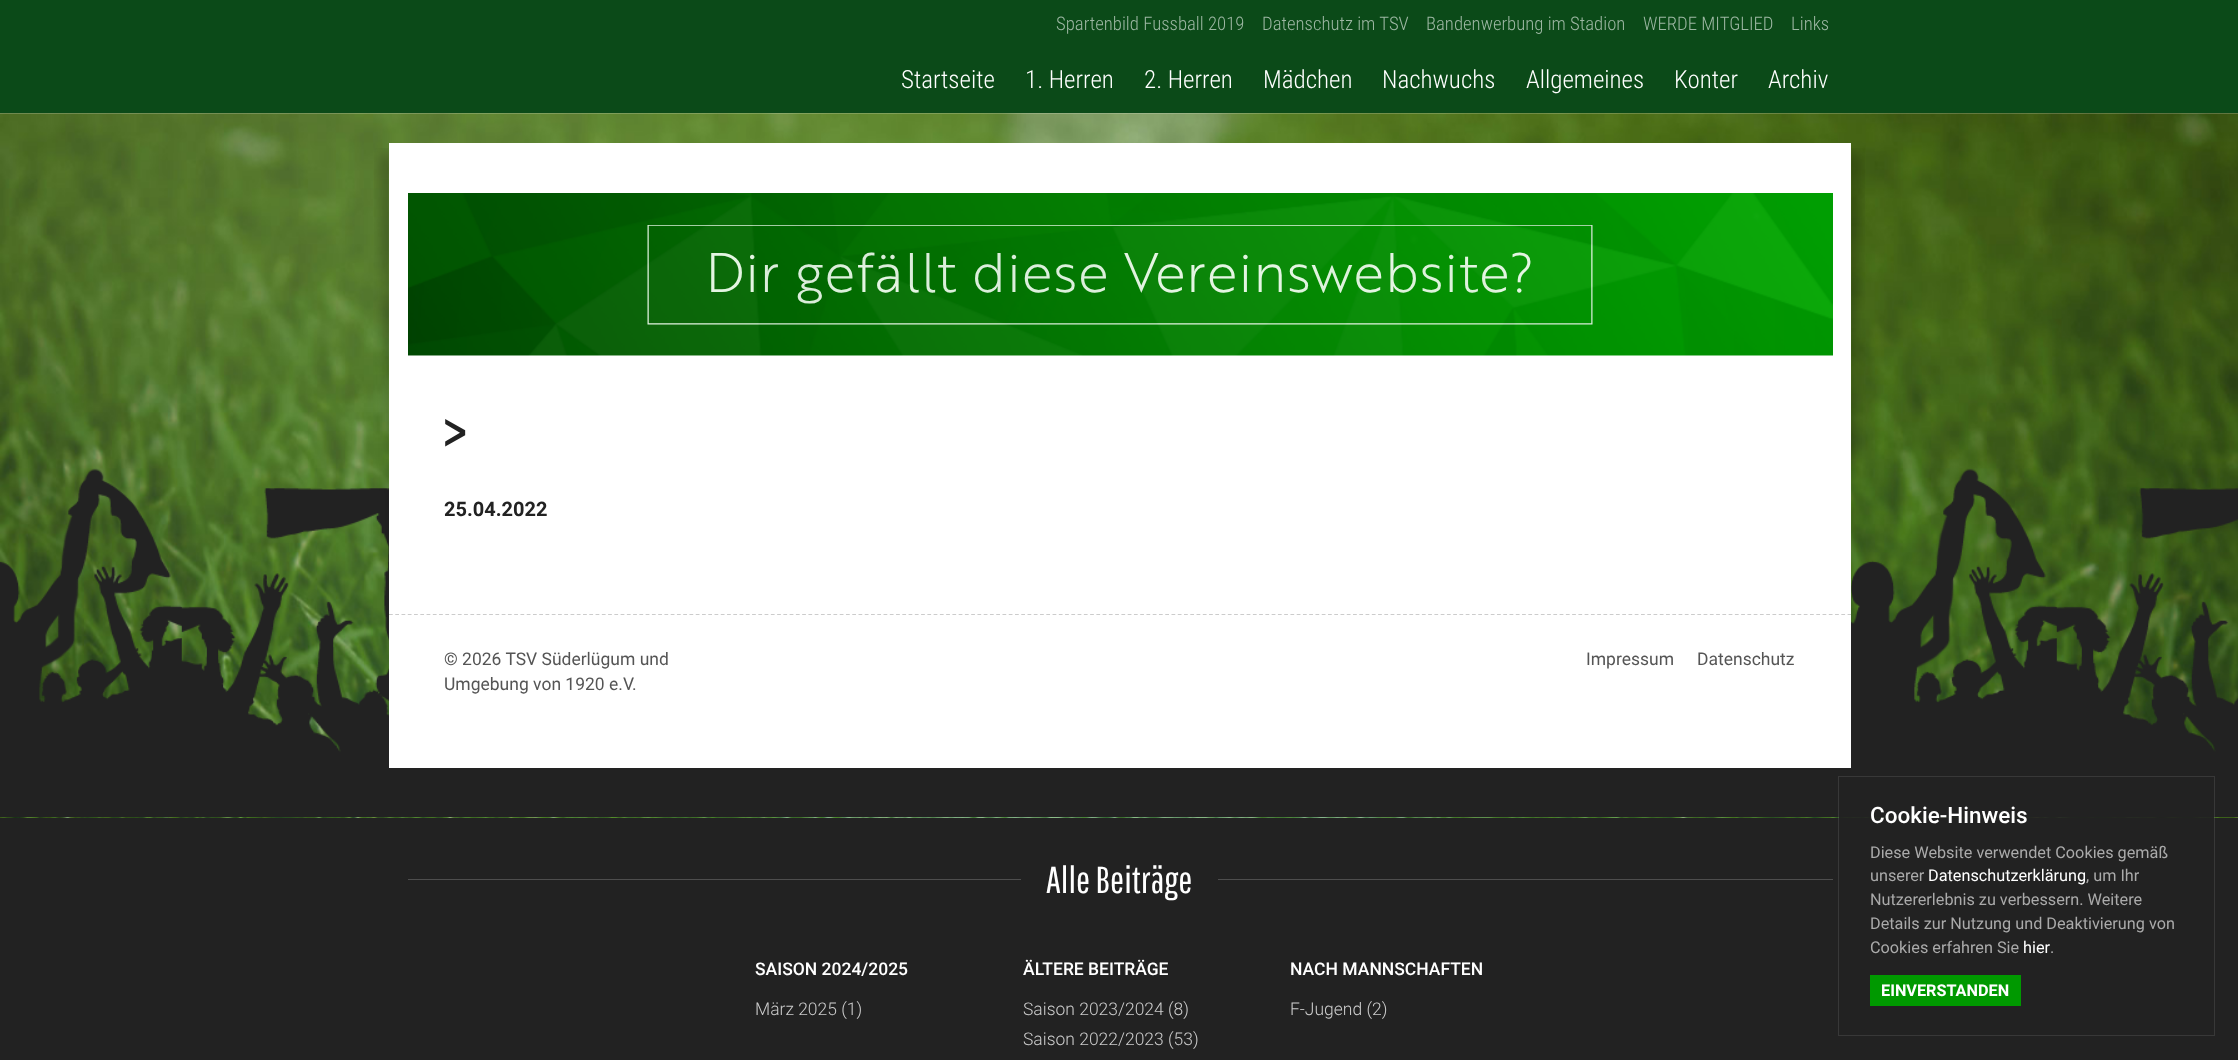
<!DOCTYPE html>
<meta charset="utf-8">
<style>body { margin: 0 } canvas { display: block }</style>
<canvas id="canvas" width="2238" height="1060"></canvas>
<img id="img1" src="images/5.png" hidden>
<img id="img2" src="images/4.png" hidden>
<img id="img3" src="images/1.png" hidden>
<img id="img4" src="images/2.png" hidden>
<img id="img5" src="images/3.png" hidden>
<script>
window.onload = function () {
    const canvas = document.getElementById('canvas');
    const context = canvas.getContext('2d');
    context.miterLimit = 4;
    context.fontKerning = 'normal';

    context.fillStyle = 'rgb(255, 255, 255)';
    context.fillRect(0, 0, 2238, 1060);
    context.fillStyle = 'rgb(11, 74, 24)';
    context.fillRect(0, 0, 2238, 113);
    context.drawImage(document.getElementById('img1'), 0, 113, 2238, 705);
    context.fillStyle = 'rgba(255, 255, 255, 0.2)';
    context.fillRect(0, 113, 2238, 1);
    context.drawImage(document.getElementById('img2'), 0, 468, 2238, 349);
    context.fillStyle = 'rgb(255, 255, 255)';
    context.fillRect(389, 143, 1462, 625);
    context.drawImage(document.getElementById('img3'), 374, 148, 15, 423);
    context.drawImage(document.getElementById('img4'), 408, 193, 1425, 163);
    context.drawImage(document.getElementById('img5'), 1851, 148, 14, 431);
    context.beginPath();
    context.moveTo(389, 614.5);
    context.lineTo(1851, 614.5);
    context.strokeStyle = 'rgb(204, 204, 204)';
    context.lineWidth = 1.2;
    context.setLineDash([3.75, 2.51]);
    context.stroke();
    context.fillStyle = 'rgb(34, 34, 34)';
    context.fillRect(0, 818, 2238, 242);
    context.fillStyle = 'rgb(78, 78, 78)';
    context.fillRect(408, 879, 613, 1);
    context.fillRect(1218, 879, 615, 1);
    context.strokeStyle = 'rgba(255, 255, 255, 0.1)';
    context.lineWidth = 1;
    context.setLineDash([]);
    context.strokeRect(1838.5, 776.5, 376, 259);
    context.fillStyle = 'rgba(33, 33, 33, 0.9)';
    context.fillRect(1839, 817, 375, 1);
    context.fillStyle = 'rgb(0, 153, 0)';
    context.fillRect(1870, 975, 151, 31);
    context.font = '300 18.75px Roboto Condensed';
    context.fillStyle = 'rgb(157, 183, 163)';
    context.fillText('Spartenbild Fussball 2019', 1056, 30);
    context.fillText('Datenschutz im TSV', 1262, 30);
    context.fillText('Bandenwerbung im Stadion', 1426, 30);
    context.fillText('WERDE MITGLIED', 1643, 30);
    context.fillText('Links', 1791, 30);
    context.font = '300 25px Roboto Condensed';
    context.fillStyle = 'rgb(255, 255, 255)';
    context.fillText('Startseite', 901, 88);
    context.fillText('1. Herren', 1025, 88);
    context.fillText('2. Herren', 1144, 88);
    context.fillText('Mädchen', 1263, 88);
    context.fillText('Nachwuchs', 1382, 88);
    context.fillText('Allgemeines', 1526, 88);
    context.fillText('Konter', 1674, 88);
    context.fillText('Archiv', 1768, 88);
    context.letterSpacing = '2px';
    context.font = '75px Pathway Gothic One';
    context.fillStyle = 'rgb(34, 34, 34)';
    context.fillText('>', 441, 459);
    context.letterSpacing = '0px';
    context.font = 'bold 20px Roboto';
    context.fillText('25.04.2022', 444, 516);
    context.font = '17.5px Roboto';
    context.fillStyle = 'rgb(85, 85, 85)';
    context.fillText('© 2026 TSV Süderlügum und', 444, 665);
    context.fillText('Umgebung von 1920 e.V.', 444, 690);
    context.fillText('Impressum', 1586, 665);
    context.fillText('Datenschutz', 1697, 665);
    context.font = '37.5px Pathway Gothic One';
    context.fillStyle = 'rgb(255, 255, 255)';
    context.fillText('Alle Beiträge', 1046, 893);
    context.font = '500 17.5px Roboto';
    context.fillText('SAISON 2024/2025', 755, 975);
    context.font = '300 17.5px Roboto';
    context.fillStyle = 'rgb(204, 204, 204)';
    context.fillText('März 2025 (1)', 755, 1015);
    context.font = '500 17.5px Roboto';
    context.fillStyle = 'rgb(255, 255, 255)';
    context.fillText('ÄLTERE BEITRÄGE', 1023, 975);
    context.font = '300 17.5px Roboto';
    context.fillStyle = 'rgb(204, 204, 204)';
    context.fillText('Saison 2023/2024 (8)', 1023, 1015);
    context.fillText('Saison 2022/2023 (53)', 1023, 1045);
    context.font = '500 17.5px Roboto';
    context.fillStyle = 'rgb(255, 255, 255)';
    context.fillText('NACH MANNSCHAFTEN', 1290, 975);
    context.font = '300 17.5px Roboto';
    context.fillStyle = 'rgb(204, 204, 204)';
    context.fillText('F-Jugend (2)', 1290, 1015);
    context.font = '500 22.5px Roboto';
    context.fillStyle = 'rgb(255, 255, 255)';
    context.fillText('Cookie-Hinweis', 1870, 823);
    context.font = '16.25px Roboto';
    context.fillStyle = 'rgb(170, 170, 170)';
    context.fillText('Diese Website verwendet Cookies gemäß', 1870, 858);
    context.fillText('unserer', 1870, 881);
    context.fillStyle = 'rgb(255, 255, 255)';
    context.fillText('Datenschutzerklärung', 1928, 881);
    context.fillStyle = 'rgb(170, 170, 170)';
    context.fillText(', um Ihr', 2086, 881);
    context.fillText('Nutzererlebnis zu verbessern. Weitere', 1870, 905);
    context.fillText('Details zur Nutzung und Deaktivierung von', 1870, 929);
    context.fillText('Cookies erfahren Sie', 1870, 953);
    context.fillStyle = 'rgb(255, 255, 255)';
    context.fillText('hier', 2023, 953);
    context.fillStyle = 'rgb(170, 170, 170)';
    context.fillText('.', 2050, 953);
    context.font = 'bold 16.25px Roboto';
    context.fillStyle = 'rgb(255, 255, 255)';
    context.fillText('EINVERSTANDEN', 1881, 996);
};
</script>
